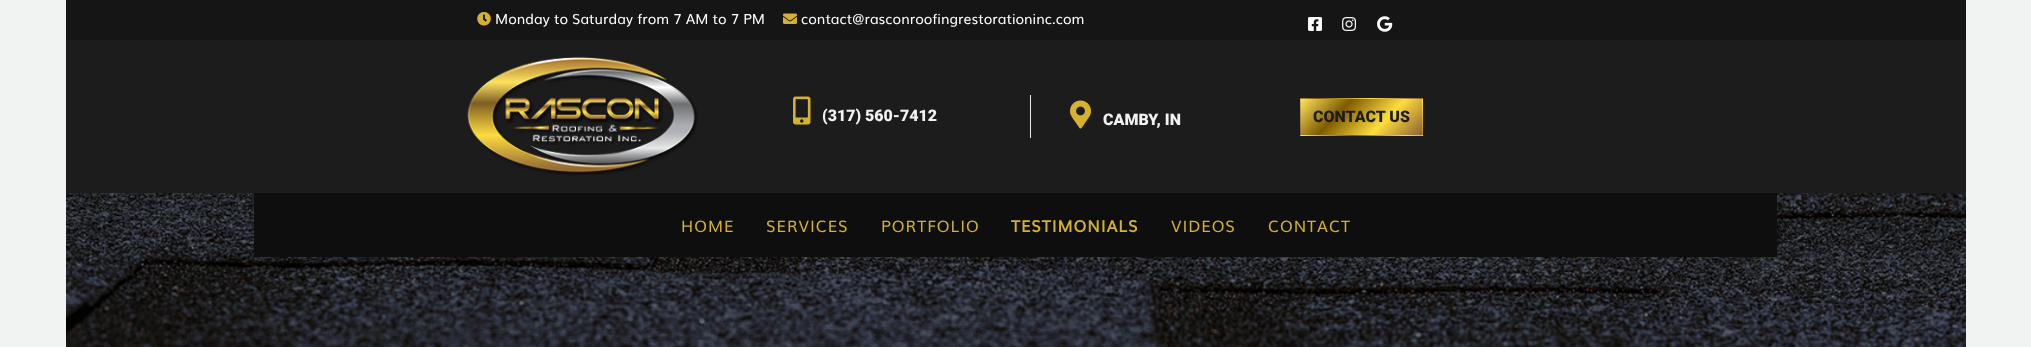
<!DOCTYPE html>
<meta charset="utf-8">
<style>body { margin: 0 } canvas { display: block }</style>
<canvas id="canvas" width="2031" height="347"></canvas>
<img id="img1" src="images/1.png" hidden>
<img id="img2" src="images/2.png" hidden>
<img id="img3" src="images/3.png" hidden>
<img id="img4" src="images/4.png" hidden>
<img id="img5" src="images/5.png" hidden>
<img id="img6" src="images/6.png" hidden>
<img id="img7" src="images/7.png" hidden>
<img id="img8" src="images/8.png" hidden>
<img id="img9" src="images/9.png" hidden>
<script>
window.onload = function () {
    const canvas = document.getElementById('canvas');
    const context = canvas.getContext('2d');
    context.miterLimit = 4;
    context.fontKerning = 'normal';
    let gradient;

    context.fillStyle = 'rgb(241, 242, 242)';
    context.fillRect(0, 0, 2031, 347);
    context.fillStyle = 'rgb(29, 28, 28)';
    context.fillRect(66, 40, 1900, 153);
    context.fillStyle = 'rgb(22, 21, 21)';
    context.fillRect(66, 0, 1900, 40);
    context.drawImage(document.getElementById('img1'), 477, 12, 14, 14);
    context.drawImage(document.getElementById('img2'), 783, 13, 14, 11);
    context.drawImage(document.getElementById('img3'), 1308, 17, 14, 14);
    context.drawImage(document.getElementById('img4'), 1342, 17, 15, 14);
    context.drawImage(document.getElementById('img5'), 1377, 16, 16, 16);
    context.drawImage(document.getElementById('img6'), 467, 56, 231, 119);
    context.fillStyle = 'rgb(233, 236, 239)';
    context.fillRect(1030, 95, 1, 43);
    context.drawImage(document.getElementById('img7'), 793, 96, 18, 29);
    context.drawImage(document.getElementById('img8'), 1070, 100, 21, 29);
    gradient = context.createLinearGradient(1281, 120, 1200, 42);
    gradient.addColorStop(0, 'rgb(140, 96, 52)');
    gradient.addColorStop(0.33, 'rgb(255, 221, 63)');
    gradient.addColorStop(0.67, 'rgb(127, 91, 0)');
    gradient.addColorStop(1, 'rgb(255, 227, 95)');
    context.fillStyle = gradient;
    context.fillRect(1300, 98, 1, 1);
    gradient = context.createLinearGradient(1402, 120, 1321, 42);
    gradient.addColorStop(0, 'rgb(140, 96, 52)');
    gradient.addColorStop(0.33, 'rgb(255, 221, 63)');
    gradient.addColorStop(0.67, 'rgb(127, 91, 0)');
    gradient.addColorStop(1, 'rgb(255, 227, 95)');
    context.fillStyle = gradient;
    context.fillRect(1301, 98, 121, 1);
    gradient = context.createLinearGradient(1523, 120, 1442, 42);
    gradient.addColorStop(0, 'rgb(140, 96, 52)');
    gradient.addColorStop(0.33, 'rgb(255, 221, 63)');
    gradient.addColorStop(0.67, 'rgb(127, 91, 0)');
    gradient.addColorStop(1, 'rgb(255, 227, 95)');
    context.fillStyle = gradient;
    context.fillRect(1422, 98, 1, 1);
    gradient = context.createLinearGradient(1281, 156, 1200, 78);
    gradient.addColorStop(0, 'rgb(140, 96, 52)');
    gradient.addColorStop(0.33, 'rgb(255, 221, 63)');
    gradient.addColorStop(0.67, 'rgb(127, 91, 0)');
    gradient.addColorStop(1, 'rgb(255, 227, 95)');
    context.fillStyle = gradient;
    context.fillRect(1300, 99, 1, 36);
    gradient = context.createLinearGradient(1402, 156, 1321, 78);
    gradient.addColorStop(0, 'rgb(140, 96, 52)');
    gradient.addColorStop(0.33, 'rgb(255, 221, 63)');
    gradient.addColorStop(0.67, 'rgb(127, 91, 0)');
    gradient.addColorStop(1, 'rgb(255, 227, 95)');
    context.fillStyle = gradient;
    context.fillRect(1301, 99, 121, 36);
    gradient = context.createLinearGradient(1523, 156, 1442, 78);
    gradient.addColorStop(0, 'rgb(140, 96, 52)');
    gradient.addColorStop(0.33, 'rgb(255, 221, 63)');
    gradient.addColorStop(0.67, 'rgb(127, 91, 0)');
    gradient.addColorStop(1, 'rgb(255, 227, 95)');
    context.fillStyle = gradient;
    context.fillRect(1422, 99, 1, 36);
    gradient = context.createLinearGradient(1281, 192, 1200, 114);
    gradient.addColorStop(0, 'rgb(140, 96, 52)');
    gradient.addColorStop(0.33, 'rgb(255, 221, 63)');
    gradient.addColorStop(0.67, 'rgb(127, 91, 0)');
    gradient.addColorStop(1, 'rgb(255, 227, 95)');
    context.fillStyle = gradient;
    context.fillRect(1300, 135, 1, 1);
    gradient = context.createLinearGradient(1402, 192, 1321, 114);
    gradient.addColorStop(0, 'rgb(140, 96, 52)');
    gradient.addColorStop(0.33, 'rgb(255, 221, 63)');
    gradient.addColorStop(0.67, 'rgb(127, 91, 0)');
    gradient.addColorStop(1, 'rgb(255, 227, 95)');
    context.fillStyle = gradient;
    context.fillRect(1301, 135, 121, 1);
    gradient = context.createLinearGradient(1523, 192, 1442, 114);
    gradient.addColorStop(0, 'rgb(140, 96, 52)');
    gradient.addColorStop(0.33, 'rgb(255, 221, 63)');
    gradient.addColorStop(0.67, 'rgb(127, 91, 0)');
    gradient.addColorStop(1, 'rgb(255, 227, 95)');
    context.fillStyle = gradient;
    context.fillRect(1422, 135, 1, 1);
    context.drawImage(document.getElementById('img9'), 66, 193, 1900, 154);
    context.fillStyle = 'rgb(14, 14, 14)';
    context.fillRect(254, 193, 1523, 64);
    context.font = '14px Muli';
    context.fillStyle = 'rgb(255, 255, 255)';
    context.fillText('Monday to Saturday from 7 AM to 7 PM', 495, 24);
    context.fillText('contact@rasconroofingrestorationinc.com', 801, 24);
    context.font = '900 16px Roboto';
    context.fillStyle = 'rgb(241, 242, 242)';
    context.fillText('(317) 560-7412', 822, 121);
    context.fillText('CAMBY, IN', 1103, 125);
    context.fillStyle = 'rgb(29, 28, 28)';
    context.fillText('CONTACT US', 1313, 122);
    context.letterSpacing = '1px';
    context.font = '16px Muli';
    context.fillStyle = 'rgb(213, 178, 42)';
    context.fillText('HOME', 681, 232);
    context.fillText('SERVICES', 766, 232);
    context.fillText('PORTFOLIO', 881, 232);
    context.font = 'bold 16px Muli';
    context.fillText('TESTIMONIALS', 1011, 232);
    context.font = '16px Muli';
    context.fillText('VIDEOS', 1171, 232);
    context.fillText('CONTACT', 1268, 232);
};
</script>
